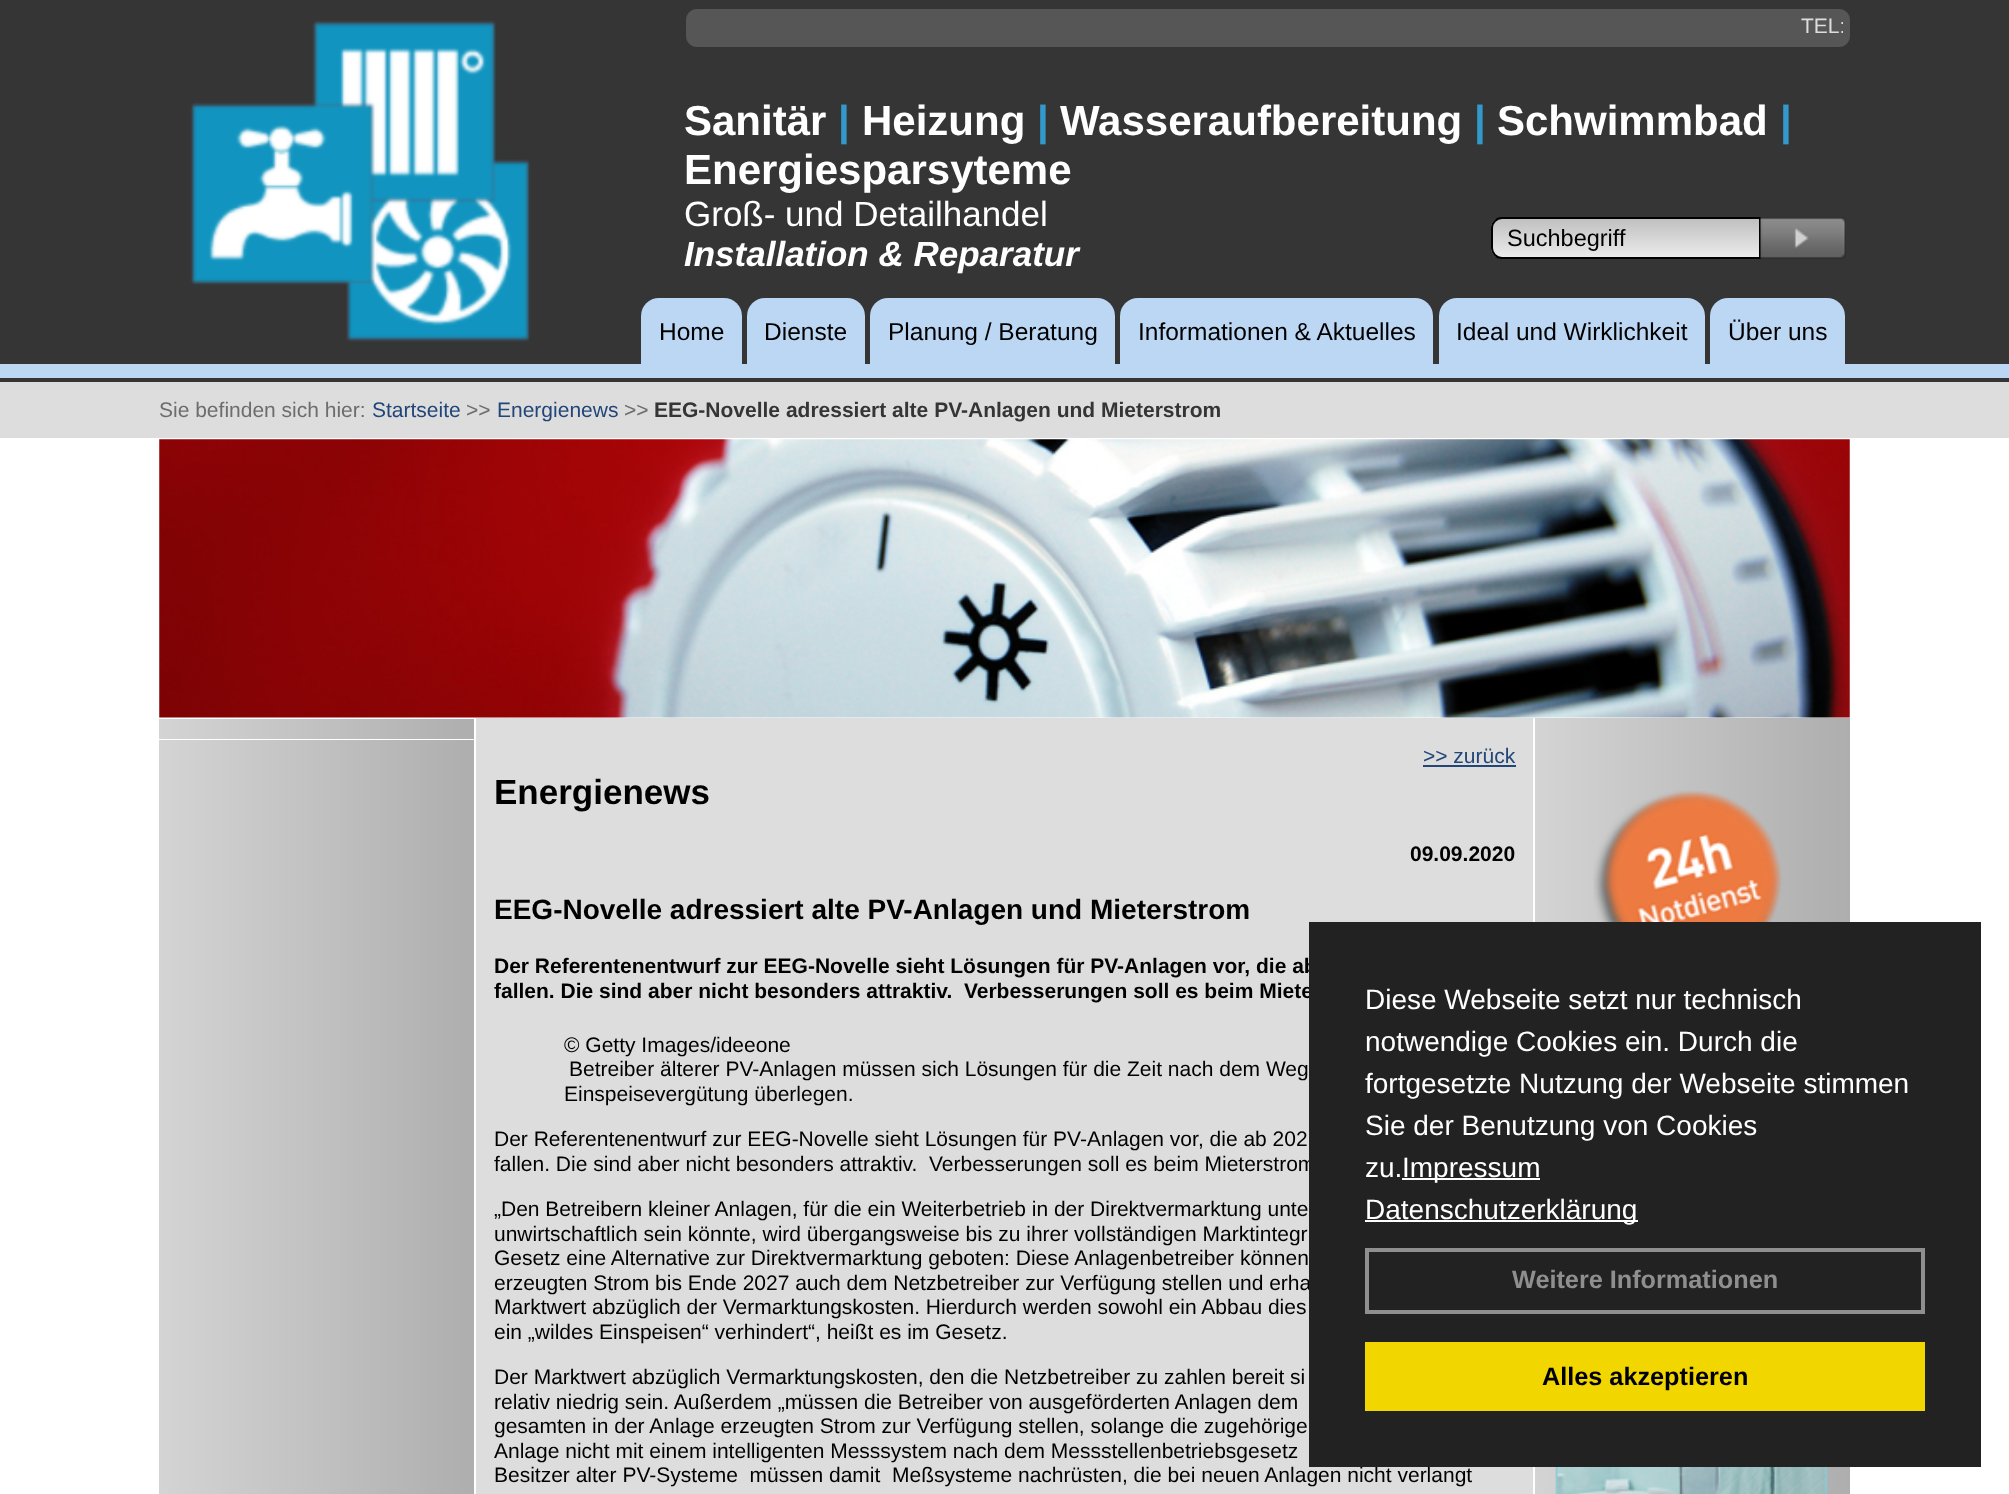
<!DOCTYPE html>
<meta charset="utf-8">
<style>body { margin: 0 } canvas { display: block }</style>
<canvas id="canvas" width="2009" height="1494"></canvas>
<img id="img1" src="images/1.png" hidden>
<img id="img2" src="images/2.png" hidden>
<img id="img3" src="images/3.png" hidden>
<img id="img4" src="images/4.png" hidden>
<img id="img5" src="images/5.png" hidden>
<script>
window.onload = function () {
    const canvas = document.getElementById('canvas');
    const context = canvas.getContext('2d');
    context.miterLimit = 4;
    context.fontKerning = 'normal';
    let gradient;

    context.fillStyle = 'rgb(255, 255, 255)';
    context.fillRect(0, 0, 2009, 1494);
    context.fillStyle = 'rgb(53, 53, 53)';
    context.fillRect(0, 0, 2009, 382);
    context.drawImage(document.getElementById('img1'), 190, 20, 341, 322);
    context.fillStyle = 'rgb(86, 86, 86)';
    context.beginPath();
    context.roundRect(686, 9, 1164, 38, 11);
    context.fill();
    context.save();
    context.beginPath();
    context.roundRect(1491, 217, 270, 42, [11, 0, 0, 11]);
    context.clip();
    gradient = context.createLinearGradient(1626, 219, 1626, 257);
    gradient.addColorStop(0, 'rgb(192, 192, 192)');
    gradient.addColorStop(1, 'rgb(235, 235, 235)');
    context.fillStyle = gradient;
    context.fillRect(1491, 219, 268, 38);
    context.restore();
    context.beginPath();
    context.roundRect(1492, 218, 268, 40, [10, 0, 0, 10]);
    context.strokeStyle = 'rgb(0, 0, 0)';
    context.lineWidth = 2;
    context.stroke();
    context.drawImage(document.getElementById('img2'), 1760, 217, 86, 42);
    context.fillStyle = 'rgb(188, 215, 244)';
    context.fillRect(0, 364, 2009, 14);
    context.beginPath();
    context.roundRect(641, 298, 101, 68, [18, 18, 0, 0]);
    context.fill();
    context.beginPath();
    context.roundRect(747, 298, 118, 68, [18, 18, 0, 0]);
    context.fill();
    context.beginPath();
    context.roundRect(870, 298, 245, 68, [18, 18, 0, 0]);
    context.fill();
    context.beginPath();
    context.roundRect(1120, 298, 313, 68, [18, 18, 0, 0]);
    context.fill();
    context.beginPath();
    context.roundRect(1439, 298, 266, 68, [18, 18, 0, 0]);
    context.fill();
    context.beginPath();
    context.roundRect(1710, 298, 135, 68, [18, 18, 0, 0]);
    context.fill();
    context.fillStyle = 'rgb(221, 221, 221)';
    context.fillRect(0, 382, 2009, 56);
    context.drawImage(document.getElementById('img3'), 159, 439, 1691, 279);
    gradient = context.createLinearGradient(159, 729, 474, 729);
    gradient.addColorStop(0, 'rgb(212, 212, 212)');
    gradient.addColorStop(1, 'rgb(174, 174, 174)');
    context.fillStyle = gradient;
    context.fillRect(159, 719, 315, 20);
    gradient = context.createLinearGradient(159, 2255, 474, 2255);
    gradient.addColorStop(0, 'rgb(212, 212, 212)');
    gradient.addColorStop(1, 'rgb(174, 174, 174)');
    context.fillStyle = gradient;
    context.fillRect(159, 740, 315, 754);
    context.fillStyle = 'rgb(221, 221, 221)';
    context.fillRect(476, 718, 1057, 776);
    context.fillStyle = 'rgb(34, 70, 120)';
    context.fillRect(1423, 765, 93, 2);
    gradient = context.createLinearGradient(1535, 1224, 1850, 1224);
    gradient.addColorStop(0, 'rgb(212, 212, 212)');
    gradient.addColorStop(1, 'rgb(174, 174, 174)');
    context.fillStyle = gradient;
    context.fillRect(1535, 718, 315, 776);
    context.drawImage(document.getElementById('img4'), 1593, 790, 189, 132);
    context.drawImage(document.getElementById('img5'), 1555, 1467, 273, 27);
    context.font = 'bold 42px Liberation Sans';
    context.fillStyle = 'rgb(255, 255, 255)';
    context.fillText('Sanitär', 684, 135);
    context.fillStyle = 'rgb(51, 153, 204)';
    context.fillText('|', 838, 135);
    context.fillStyle = 'rgb(255, 255, 255)';
    context.fillText('Heizung', 862, 135);
    context.fillStyle = 'rgb(51, 153, 204)';
    context.fillText('|', 1037, 135);
    context.fillStyle = 'rgb(255, 255, 255)';
    context.fillText('Wasseraufbereitung', 1060, 135);
    context.fillStyle = 'rgb(51, 153, 204)';
    context.fillText('|', 1474, 135);
    context.fillStyle = 'rgb(255, 255, 255)';
    context.fillText('Schwimmbad', 1497, 135);
    context.fillStyle = 'rgb(51, 153, 204)';
    context.fillText('|', 1780, 135);
    context.fillStyle = 'rgb(255, 255, 255)';
    context.fillText('Energiesparsyteme', 684, 184);
    context.font = '35px Liberation Sans';
    context.fillText('Groß- und Detailhandel', 684, 226);
    context.font = 'italic bold 35px Liberation Sans';
    context.fillText('Installation & Reparatur', 684, 266);
    context.save();
    context.beginPath();
    context.rect(700, 14, 1143, 25);
    context.clip();
    context.font = '21px Liberation Sans';
    context.fillStyle = 'rgb(221, 221, 221)';
    context.fillText('TEL:', 1801, 33);
    context.restore();
    context.font = '23.5px Liberation Sans';
    context.fillStyle = 'rgb(0, 0, 0)';
    context.fillText('Suchbegriff', 1507, 246);
    context.font = '24.5px Liberation Sans';
    context.fillText('Home', 659, 340);
    context.fillText('Dienste', 764, 340);
    context.fillText('Planung / Beratung', 888, 340);
    context.fillText('Informationen & Aktuelles', 1138, 340);
    context.fillText('Ideal und Wirklichkeit', 1456, 340);
    context.fillText('Über uns', 1728, 340);
    context.font = '21px Liberation Sans';
    context.fillStyle = 'rgb(109, 109, 109)';
    context.fillText('Sie befinden sich hier:', 159, 417);
    context.fillStyle = 'rgb(34, 70, 120)';
    context.fillText('Startseite', 372, 417);
    context.fillStyle = 'rgb(109, 109, 109)';
    context.fillText('>>', 466, 417);
    context.fillStyle = 'rgb(34, 70, 120)';
    context.fillText('Energienews', 497, 417);
    context.fillStyle = 'rgb(109, 109, 109)';
    context.fillText('>>', 624, 417);
    context.font = 'bold 21px Liberation Sans';
    context.fillStyle = 'rgb(53, 53, 53)';
    context.fillText('EEG-Novelle adressiert alte PV-Anlagen und Mieterstrom', 654, 417);
    context.font = '21px Liberation Sans';
    context.fillStyle = 'rgb(34, 70, 120)';
    context.fillText('>> zurück', 1423, 763);
    context.font = 'bold 35px Liberation Sans';
    context.fillStyle = 'rgb(0, 0, 0)';
    context.fillText('Energienews', 494, 804);
    context.font = 'bold 21px Liberation Sans';
    context.fillText('09.09.2020', 1410, 861);
    context.font = 'bold 28px Liberation Sans';
    context.fillText('EEG-Novelle adressiert alte PV-Anlagen und Mieterstrom', 494, 919);
    context.font = 'bold 21px Liberation Sans';
    context.fillText('Der Referentenentwurf zur EEG-Novelle sieht Lösungen für PV-Anlagen vor, die ab', 494, 973);
    context.fillText('fallen. Die sind aber nicht besonders attraktiv.  Verbesserungen soll es beim Miete', 494, 998);
    context.font = '21px Liberation Sans';
    context.fillText('© Getty Images/ideeone', 564, 1052);
    context.fillText('Betreiber älterer PV-Anlagen müssen sich Lösungen für die Zeit nach dem Weg', 569, 1076);
    context.fillText('Einspeisevergütung überlegen.', 564, 1101);
    context.fillText('Der Referentenentwurf zur EEG-Novelle sieht Lösungen für PV-Anlagen vor, die ab 202', 494, 1146);
    context.fillText('fallen. Die sind aber nicht besonders attraktiv.  Verbesserungen soll es beim Mieterstrom', 494, 1171);
    context.fillText('„Den Betreibern kleiner Anlagen, für die ein Weiterbetrieb in der Direktvermarktung unte', 494, 1216);
    context.fillText('unwirtschaftlich sein könnte, wird übergangsweise bis zu ihrer vollständigen Marktintegr', 494, 1241);
    context.fillText('Gesetz eine Alternative zur Direktvermarktung geboten: Diese Anlagenbetreiber können', 494, 1265);
    context.fillText('erzeugten Strom bis Ende 2027 auch dem Netzbetreiber zur Verfügung stellen und erha', 494, 1290);
    context.fillText('Marktwert abzüglich der Vermarktungskosten. Hierdurch werden sowohl ein Abbau dies', 494, 1314);
    context.fillText('ein „wildes Einspeisen“ verhindert“, heißt es im Gesetz.', 494, 1339);
    context.fillText('Der Marktwert abzüglich Vermarktungskosten, den die Netzbetreiber zu zahlen bereit si', 494, 1384);
    context.fillText('relativ niedrig sein. Außerdem „müssen die Betreiber von ausgeförderten Anlagen dem', 494, 1409);
    context.fillText('gesamten in der Anlage erzeugten Strom zur Verfügung stellen, solange die zugehörige', 494, 1433);
    context.fillText('Anlage nicht mit einem intelligenten Messsystem nach dem Messstellenbetriebsgesetz', 494, 1458);
    context.fillText('Besitzer alter PV-Systeme  müssen damit  Meßsysteme nachrüsten, die bei neuen Anlagen nicht verlangt', 494, 1482);
    context.fillStyle = 'rgb(34, 34, 34)';
    context.fillRect(1309, 922, 672, 545);
    context.font = '28px Liberation Sans';
    context.fillStyle = 'rgb(255, 255, 255)';
    context.fillText('Diese Webseite setzt nur technisch', 1365, 1009);
    context.fillText('notwendige Cookies ein. Durch die', 1365, 1051);
    context.fillText('fortgesetzte Nutzung der Webseite stimmen', 1365, 1093);
    context.fillText('Sie der Benutzung von Cookies', 1365, 1135);
    context.fillText('zu.', 1365, 1177);
    context.fillRect(1402, 1178, 138, 2);
    context.fillText('Impressum', 1402, 1177);
    context.fillRect(1365, 1220, 273, 2);
    context.fillText('Datenschutzerklärung', 1365, 1219);
    context.strokeStyle = 'rgb(143, 143, 143)';
    context.lineWidth = 4;
    context.strokeRect(1367, 1250, 556, 62);
    context.font = 'bold 25.25px Liberation Sans';
    context.fillStyle = 'rgb(143, 143, 143)';
    context.fillText('Weitere Informationen', 1512, 1288);
    context.fillStyle = 'rgb(241, 214, 0)';
    context.fillRect(1365, 1342, 560, 69);
    context.fillStyle = 'rgb(0, 0, 0)';
    context.fillText('Alles akzeptieren', 1542, 1385);
};
</script>
